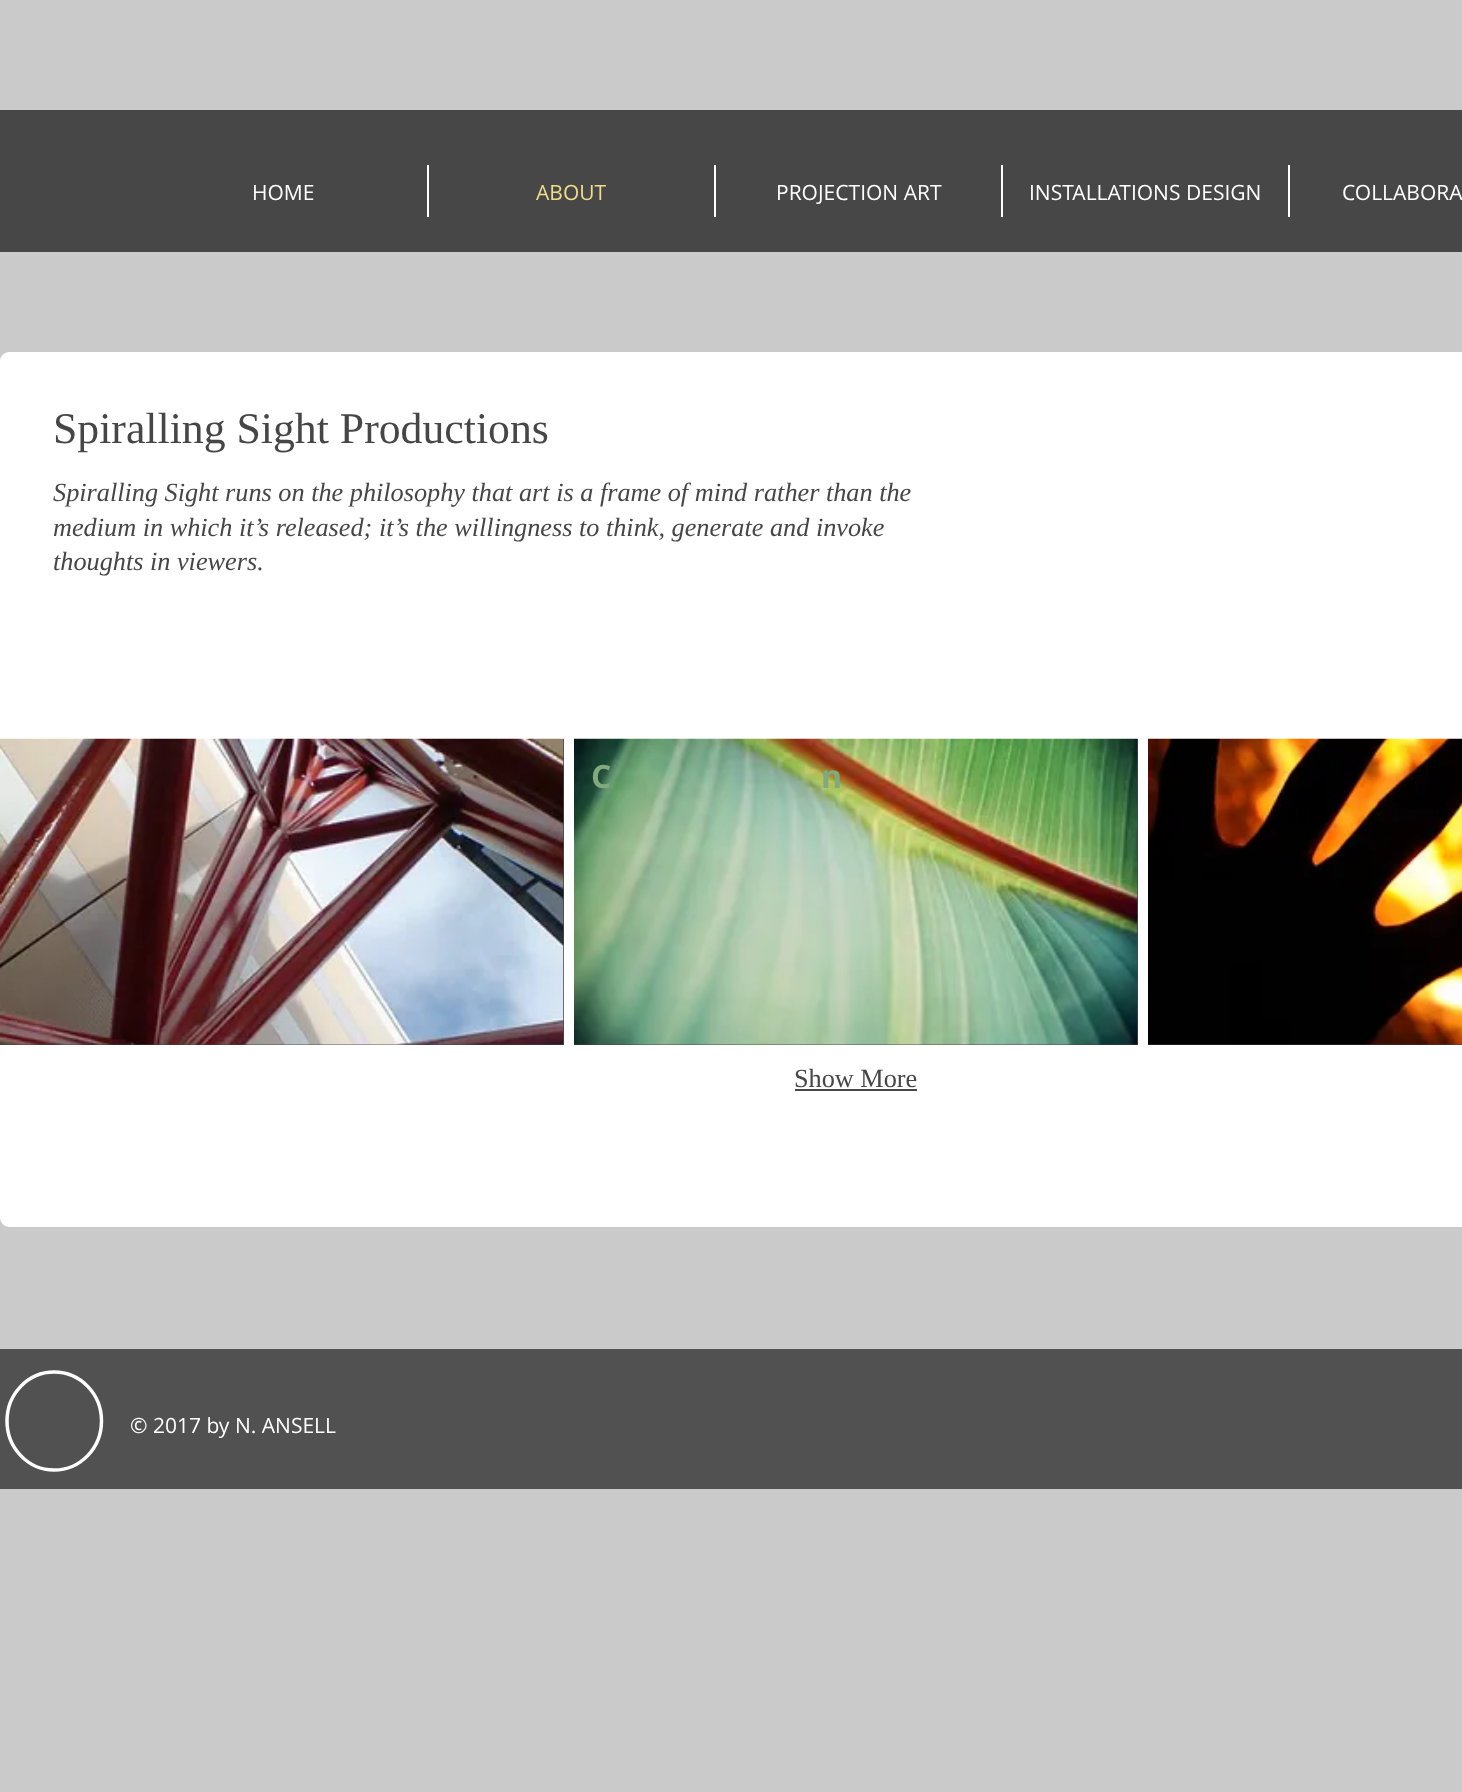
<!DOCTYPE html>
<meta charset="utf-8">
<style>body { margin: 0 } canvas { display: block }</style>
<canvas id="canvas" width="1462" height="1792"></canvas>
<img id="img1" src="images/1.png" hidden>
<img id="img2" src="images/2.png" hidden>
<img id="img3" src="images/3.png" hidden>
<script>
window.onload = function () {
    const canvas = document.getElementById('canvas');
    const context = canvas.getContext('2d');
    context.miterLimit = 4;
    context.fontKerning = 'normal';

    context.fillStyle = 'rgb(202, 202, 202)';
    context.fillRect(0, 0, 1462, 1792);
    context.fillStyle = 'rgb(71, 71, 71)';
    context.fillRect(0, 110, 1462, 142);
    context.fillStyle = 'rgb(255, 255, 255)';
    context.fillRect(427, 165, 2, 52);
    context.fillRect(714, 165, 2, 52);
    context.fillRect(1001, 165, 2, 52);
    context.fillRect(1288, 165, 2, 52);
    context.beginPath();
    context.roundRect(1, 353, 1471, 873, 8);
    context.fill();
    context.strokeStyle = 'rgb(255, 255, 255)';
    context.lineWidth = 2;
    context.stroke();
    context.fillStyle = 'rgb(70, 70, 70)';
    context.fillRect(0, 739, 564, 306);
    context.drawImage(document.getElementById('img1'), 0, 738, 564, 307);
    context.fillRect(574, 739, 564, 306);
    context.drawImage(document.getElementById('img2'), 574, 738, 564, 307);
    context.fillRect(1148, 1044, 314, 1);
    context.drawImage(document.getElementById('img3'), 1148, 738, 314, 307);
    context.fillRect(795, 1089, 122, 2);
    context.fillStyle = 'rgb(81, 81, 81)';
    context.fillRect(0, 1349, 1462, 140);
    context.beginPath();
    context.moveTo(54, 1372);
    context.bezierCurveTo(80.5, 1372, 101.5, 1394, 101.5, 1421);
    context.bezierCurveTo(101.5, 1448, 80.5, 1470, 54, 1470);
    context.bezierCurveTo(28, 1470, 7, 1448, 7, 1421);
    context.bezierCurveTo(7, 1394, 28, 1372, 54, 1372);
    context.closePath();
    context.lineWidth = 3.5;
    context.stroke();
    context.font = '21px Open Sans';
    context.fillStyle = 'rgb(255, 255, 255)';
    context.fillText('HOME', 252, 200);
    context.fillStyle = 'rgb(239, 221, 141)';
    context.fillText('ABOUT', 536, 200);
    context.fillStyle = 'rgb(255, 255, 255)';
    context.fillText('PROJECTION ART', 776, 200);
    context.fillText('INSTALLATIONS DESIGN', 1029, 200);
    context.fillText('COLLABORA', 1342, 200);
    context.font = '43.75px Liberation Serif';
    context.fillStyle = 'rgb(70, 70, 70)';
    context.fillText('Spiralling Sight Productions', 53, 443);
    context.font = 'italic 26.25px Liberation Serif';
    context.fillText('Spiralling Sight runs on the philosophy that art is a frame of mind rather than the', 53, 501);
    context.fillText('medium in which it’s released; it’s the willingness to think, generate and invoke', 53, 536);
    context.fillText('thoughts in viewers.', 53, 570);
    context.font = 'bold 32px Open Sans';
    context.fillStyle = 'rgb(130, 168, 126)';
    context.fillText('C', 591, 788);
    context.fillText('n', 821, 788);
    context.font = '26.25px Liberation Serif';
    context.fillStyle = 'rgb(70, 70, 70)';
    context.fillText('Show More', 794, 1087);
    context.font = '21px Open Sans';
    context.fillStyle = 'rgb(255, 255, 255)';
    context.fillText('© 2017 by N. ANSELL', 130, 1433);
};
</script>
